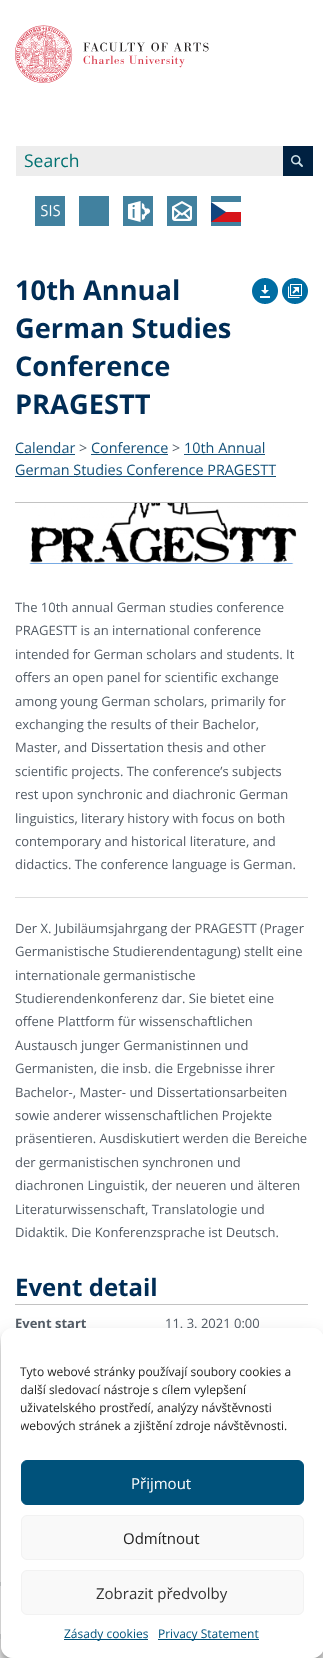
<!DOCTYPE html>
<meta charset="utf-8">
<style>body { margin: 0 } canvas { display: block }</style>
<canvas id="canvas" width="323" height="1658"></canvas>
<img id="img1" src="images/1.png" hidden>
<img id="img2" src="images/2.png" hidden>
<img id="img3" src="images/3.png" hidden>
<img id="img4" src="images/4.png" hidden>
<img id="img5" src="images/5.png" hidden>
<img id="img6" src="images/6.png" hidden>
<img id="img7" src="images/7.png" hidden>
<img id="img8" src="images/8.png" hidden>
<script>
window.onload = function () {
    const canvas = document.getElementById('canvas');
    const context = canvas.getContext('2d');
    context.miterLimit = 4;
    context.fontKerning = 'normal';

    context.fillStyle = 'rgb(255, 255, 255)';
    context.fillRect(0, 0, 323, 1658);
    context.drawImage(document.getElementById('img1'), 15, 25, 194, 58);
    context.fillStyle = 'rgb(237, 237, 237)';
    context.fillRect(16, 146, 267, 30);
    context.fillStyle = 'rgb(0, 33, 65)';
    context.fillRect(283, 146, 30, 27);
    context.drawImage(document.getElementById('img2'), 291, 155, 12, 12);
    context.fillStyle = 'rgb(0, 33, 63)';
    context.fillRect(283, 173, 30, 3);
    context.fillStyle = 'rgb(65, 129, 159)';
    context.fillRect(35, 196, 30, 30);
    context.drawImage(document.getElementById('img3'), 41, 204, 19, 13);
    context.fillRect(79, 196, 30, 30);
    context.fillRect(123, 196, 30, 30);
    context.drawImage(document.getElementById('img4'), 128, 201, 22, 21);
    context.fillRect(167, 196, 30, 30);
    context.drawImage(document.getElementById('img5'), 172, 201, 20, 20);
    context.fillRect(211, 196, 30, 30);
    context.fillStyle = 'rgb(215, 20, 26)';
    context.fillRect(211, 212, 30, 10);
    context.fillStyle = 'rgb(255, 255, 255)';
    context.fillRect(211, 202, 30, 10);
    context.fillStyle = 'rgb(17, 69, 126)';
    context.beginPath();
    context.moveTo(226, 212);
    context.lineTo(211, 202);
    context.lineTo(211, 222);
    context.closePath();
    context.fill();
    context.fillStyle = 'rgb(221, 223, 225)';
    context.fillRect(0, 1582, 1, 4);
    context.drawImage(document.getElementById('img6'), 252, 278, 26, 26);
    context.drawImage(document.getElementById('img7'), 282, 278, 26, 26);
    context.fillStyle = 'rgb(194, 194, 194)';
    context.fillRect(15, 502, 293, 1);
    context.fillStyle = 'rgb(19, 80, 121)';
    context.fillRect(15, 454, 60, 1);
    context.fillRect(91, 454, 77, 1);
    context.fillRect(184, 454, 81, 1);
    context.fillRect(15, 476, 261, 1);
    context.drawImage(document.getElementById('img8'), 29, 503, 268, 61);
    context.fillStyle = 'rgb(221, 221, 221)';
    context.fillRect(15, 897, 293, 1);
    context.fillStyle = 'rgb(194, 194, 194)';
    context.fillRect(15, 1304, 293, 1);
    context.fillStyle = 'rgb(238, 238, 238)';
    context.fillRect(0, 1639, 323, 19);
    context.fillStyle = 'rgb(221, 223, 225)';
    context.fillRect(0, 1634, 1, 5);
    context.save();
    context.beginPath();
    context.moveTo(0, 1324);
    context.lineTo(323, 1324);
    context.lineTo(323, 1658);
    context.lineTo(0, 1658);
    context.closePath();
    context.moveTo(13, 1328);
    context.lineTo(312, 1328);
    context.bezierCurveTo(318.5, 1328, 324, 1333.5, 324, 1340);
    context.lineTo(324, 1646);
    context.bezierCurveTo(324, 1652.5, 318.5, 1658, 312, 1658);
    context.lineTo(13, 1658);
    context.bezierCurveTo(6.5, 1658, 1, 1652.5, 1, 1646);
    context.lineTo(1, 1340);
    context.bezierCurveTo(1, 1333.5, 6.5, 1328, 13, 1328);
    context.closePath();
    context.clip('evenodd');
    context.fillStyle = 'rgba(0, 0, 0, 0.23)';
    context.filter = 'blur(3px)';
    context.beginPath();
    context.roundRect(1, 1334, 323, 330, 12);
    context.fill();
    context.filter = 'none';
    context.restore();
    context.save();
    context.beginPath();
    context.moveTo(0, 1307);
    context.lineTo(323, 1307);
    context.lineTo(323, 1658);
    context.lineTo(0, 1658);
    context.closePath();
    context.moveTo(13, 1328);
    context.lineTo(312, 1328);
    context.bezierCurveTo(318.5, 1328, 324, 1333.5, 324, 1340);
    context.lineTo(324, 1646);
    context.bezierCurveTo(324, 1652.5, 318.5, 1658, 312, 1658);
    context.lineTo(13, 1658);
    context.bezierCurveTo(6.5, 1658, 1, 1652.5, 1, 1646);
    context.lineTo(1, 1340);
    context.bezierCurveTo(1, 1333.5, 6.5, 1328, 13, 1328);
    context.closePath();
    context.clip('evenodd');
    context.fillStyle = 'rgba(0, 0, 0, 0.19)';
    context.filter = 'blur(10px)';
    context.beginPath();
    context.roundRect(1, 1338, 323, 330, 12);
    context.fill();
    context.filter = 'none';
    context.restore();
    context.font = '17.5px Open Sans';
    context.fillStyle = 'rgb(0, 113, 113)';
    context.fillText('Search', 24, 167);
    context.font = 'bold 27.25px Open Sans';
    context.fillStyle = 'rgb(0, 45, 86)';
    context.fillText('10th Annual', 15, 300);
    context.fillText('German Studies', 15, 338);
    context.fillText('Conference', 15, 376);
    context.fillText('PRAGESTT', 15, 414);
    context.font = '14.4px Open Sans';
    context.fillStyle = 'rgb(19, 80, 121)';
    context.fillText('Calendar', 15, 453);
    context.fillStyle = 'rgb(82, 91, 101)';
    context.fillText('>', 79, 453);
    context.fillStyle = 'rgb(19, 80, 121)';
    context.fillText('Conference', 91, 453);
    context.fillStyle = 'rgb(82, 91, 101)';
    context.fillText('>', 172, 453);
    context.fillStyle = 'rgb(19, 80, 121)';
    context.fillText('10th Annual', 184, 453);
    context.fillText('German Studies Conference PRAGESTT', 15, 475);
    context.font = '13px Open Sans';
    context.fillStyle = 'rgb(82, 91, 101)';
    context.fillText('The 10th annual German studies conference', 15, 612);
    context.fillText('PRAGESTT is an international conference', 15, 635);
    context.fillText('intended for German scholars and students. It', 15, 659);
    context.fillText('offers an open panel for scientific exchange', 15, 682);
    context.fillText('among young German scholars, primarily for', 15, 706);
    context.fillText('exchanging the results of their Bachelor,', 15, 729);
    context.fillText('Master, and Dissertation thesis and other', 15, 752);
    context.fillText('scientific projects. The conference’s subjects', 15, 776);
    context.fillText('rest upon synchronic and diachronic German', 15, 799);
    context.fillText('linguistics, literary history with focus on both', 15, 823);
    context.fillText('contemporary and historical literature, and', 15, 846);
    context.fillText('didactics. The conference language is German.', 15, 869);
    context.fillText('Der X. Jubiläumsjahrgang der PRAGESTT (Prager', 15, 933);
    context.fillText('Germanistische Studierendentagung) stellt eine', 15, 956);
    context.fillText('internationale germanistische', 15, 980);
    context.fillText('Studierendenkonferenz dar. Sie bietet eine', 15, 1003);
    context.fillText('offene Plattform für wissenschaftlichen', 15, 1026);
    context.fillText('Austausch junger Germanistinnen und', 15, 1050);
    context.fillText('Germanisten, die insb. die Ergebnisse ihrer', 15, 1073);
    context.fillText('Bachelor-, Master- und Dissertationsarbeiten', 15, 1097);
    context.fillText('sowie anderer wissenschaftlichen Projekte', 15, 1120);
    context.fillText('präsentieren. Ausdiskutiert werden die Bereiche', 15, 1143);
    context.fillText('der germanistischen synchronen und', 15, 1167);
    context.fillText('diachronen Linguistik, der neueren und älteren', 15, 1190);
    context.fillText('Literaturwissenschaft, Translatologie und', 15, 1214);
    context.fillText('Didaktik. Die Konferenzsprache ist Deutsch.', 15, 1237);
    context.font = 'bold 24px Open Sans';
    context.fillStyle = 'rgb(0, 45, 86)';
    context.fillText('Event detail', 15, 1296);
    context.font = 'bold 13px Open Sans';
    context.fillStyle = 'rgb(82, 91, 101)';
    context.fillText('Event start', 15, 1328);
    context.font = '13px Open Sans';
    context.fillText('11. 3. 2021 0:00', 165, 1328);
    context.fillStyle = 'rgb(255, 255, 255)';
    context.beginPath();
    context.roundRect(1, 1328, 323, 330, 12);
    context.fill();
    context.font = '12px Open Sans';
    context.fillStyle = 'rgb(34, 34, 34)';
    context.fillText('Tyto webové stránky používají soubory cookies a', 20, 1376);
    context.save();
    context.beginPath();
    context.rect(21, 1363, 283, 77);
    context.clip();
    context.fillText('další sledovací nástroje s cílem vylepšení', 20, 1394);
    context.restore();
    context.fillText('uživatelského prostředí, analýzy návštěvnosti', 20, 1412);
    context.save();
    context.beginPath();
    context.rect(21, 1363, 283, 77);
    context.clip();
    context.fillText('webových stránek a zjištění zdroje návštěvnosti.', 20, 1430);
    context.restore();
    context.fillStyle = 'rgb(0, 82, 123)';
    context.beginPath();
    context.roundRect(21.5, 1460.5, 282, 44, 5.5);
    context.fill();
    context.strokeStyle = 'rgb(0, 82, 123)';
    context.stroke();
    context.font = '15px Open Sans';
    context.fillStyle = 'rgb(255, 255, 255)';
    context.fillText('Přijmout', 131, 1489);
    context.fillStyle = 'rgb(249, 249, 249)';
    context.beginPath();
    context.roundRect(21.5, 1515.5, 282, 44, 5.5);
    context.fill();
    context.strokeStyle = 'rgb(242, 242, 242)';
    context.stroke();
    context.fillStyle = 'rgb(34, 34, 34)';
    context.fillText('Odmítnout', 123, 1544);
    context.fillStyle = 'rgb(249, 249, 249)';
    context.beginPath();
    context.roundRect(21.5, 1570.5, 282, 44, 5.5);
    context.fill();
    context.stroke();
    context.fillStyle = 'rgb(51, 51, 51)';
    context.fillText('Zobrazit předvolby', 96, 1599);
    context.fillStyle = 'rgb(0, 82, 123)';
    context.fillRect(64, 1639, 84, 1);
    context.font = '12px Open Sans';
    context.fillText('Zásady cookies', 64, 1638);
    context.fillRect(158, 1639, 101, 1);
    context.fillText('Privacy Statement', 158, 1638);
};
</script>
